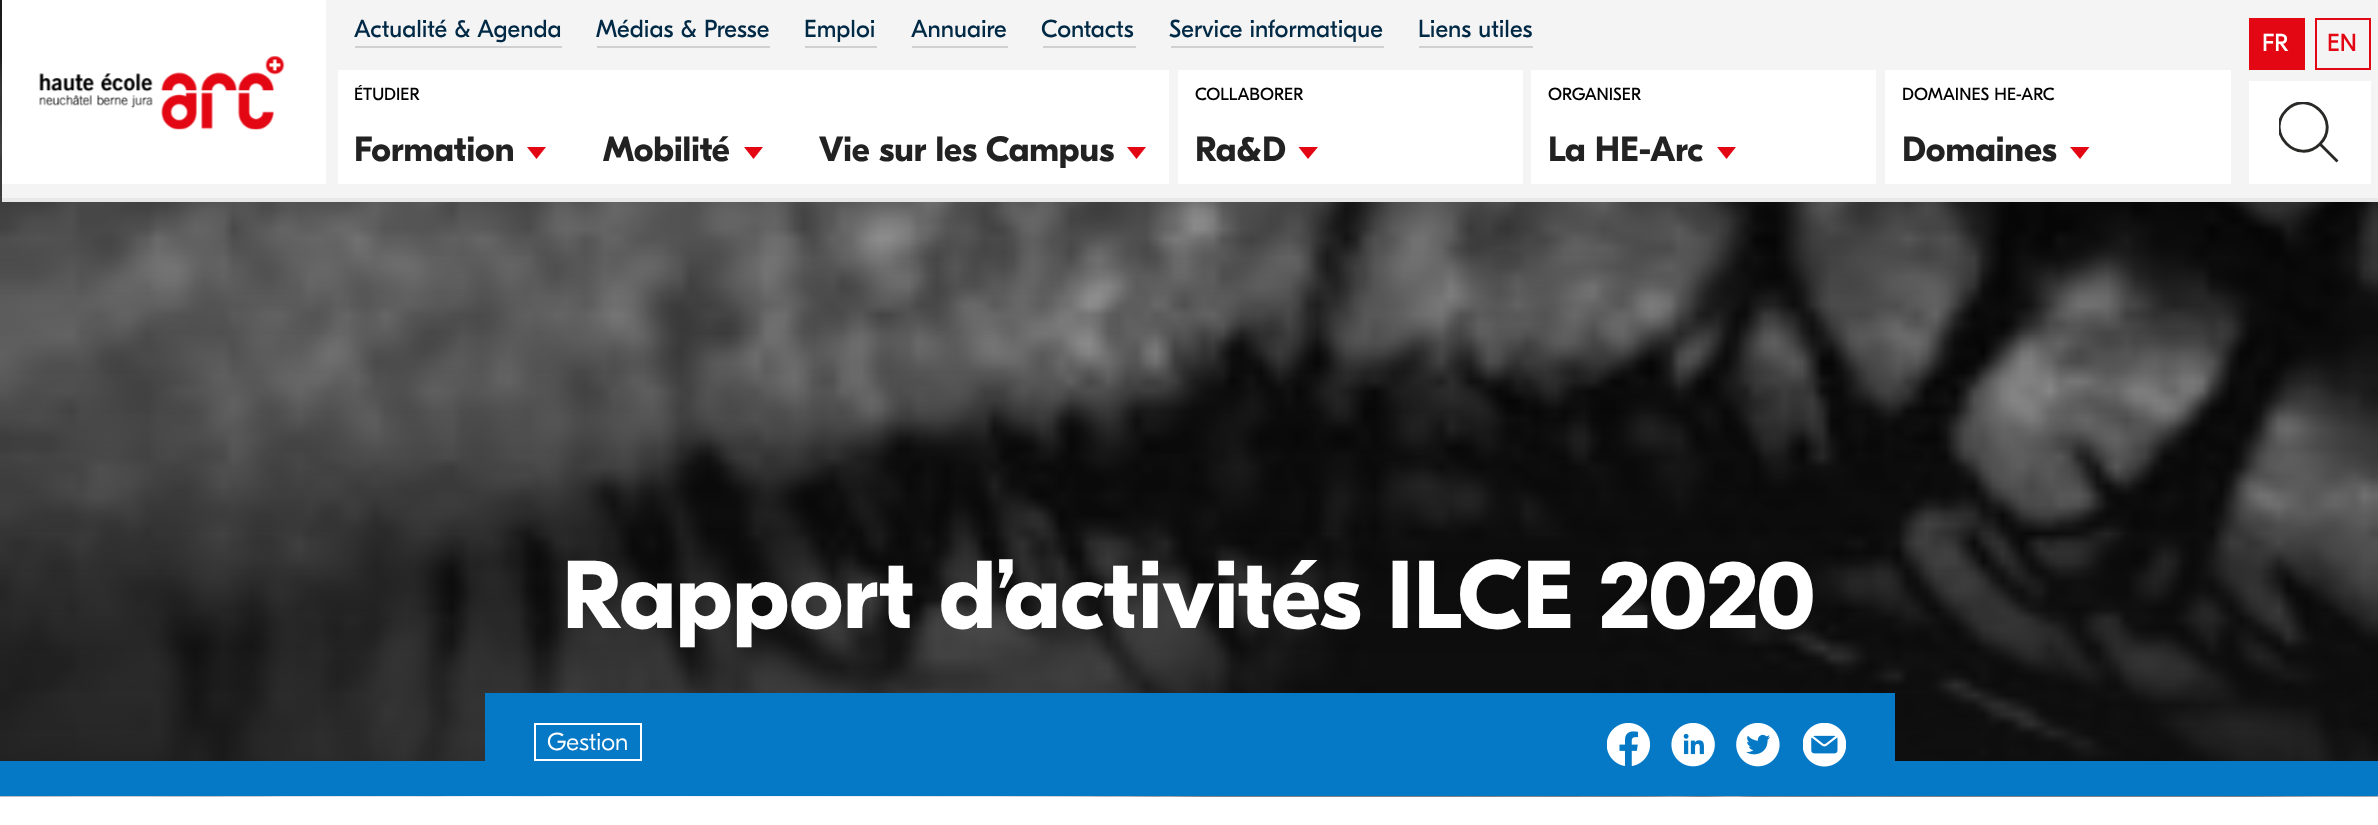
<!DOCTYPE html>
<meta charset="utf-8">
<style>body { margin: 0 } canvas { display: block }</style>
<canvas id="canvas" width="2378" height="825"></canvas>
<img id="img1" src="images/2.png" hidden>
<img id="img2" src="images/1.png" hidden>
<img id="img3" src="images/3.png" hidden>
<img id="img4" src="images/4.png" hidden>
<img id="img5" src="images/5.png" hidden>
<img id="img6" src="images/6.png" hidden>
<script>
window.onload = function () {
    const canvas = document.getElementById('canvas');
    const context = canvas.getContext('2d');
    context.miterLimit = 4;
    context.fontKerning = 'normal';

    context.fillStyle = 'rgb(255, 255, 255)';
    context.fillRect(0, 0, 2378, 825);
    context.drawImage(document.getElementById('img1'), 0, 0, 2378, 797);
    context.fillStyle = 'rgb(244, 244, 244)';
    context.fillRect(2, 0, 2376, 198);
    context.fillStyle = 'rgb(232, 232, 232)';
    context.fillRect(2, 198, 2376, 4);
    context.fillStyle = 'rgb(255, 255, 255)';
    context.fillRect(2, 0, 324, 184);
    context.drawImage(document.getElementById('img2'), 39, 56, 246, 74);
    context.fillStyle = 'rgb(208, 208, 208)';
    context.fillRect(355, 46, 207, 2);
    context.fillRect(597, 46, 173, 2);
    context.fillRect(805, 46, 72, 2);
    context.fillRect(912, 46, 96, 2);
    context.fillRect(1043, 46, 93, 2);
    context.fillRect(1171, 46, 213, 2);
    context.fillRect(1419, 46, 114, 2);
    context.fillStyle = 'rgb(227, 6, 19)';
    context.fillRect(2249, 18, 56, 52);
    context.strokeStyle = 'rgb(227, 6, 19)';
    context.lineWidth = 2;
    context.strokeRect(2316, 19, 54, 50);
    context.fillStyle = 'rgb(255, 255, 255)';
    context.fillRect(2249, 81, 122, 103);
    context.save();
    context.beginPath();
    context.rect(2279, 102, 61, 61);
    context.clip();
    context.beginPath();
    context.moveTo(2286.5, 110);
    context.bezierCurveTo(2308.5, 88, 2342, 121.5, 2320, 144);
    context.bezierCurveTo(2298, 166, 2264, 132.5, 2286.5, 110);
    context.closePath();
    context.strokeStyle = 'rgb(41, 41, 39)';
    context.lineWidth = 2.9;
    context.stroke();
    context.restore();
    context.beginPath();
    context.moveTo(2319.5, 143.5);
    context.lineTo(2337.5, 161.5);
    context.strokeStyle = 'rgb(41, 41, 39)';
    context.lineWidth = 2.9;
    context.stroke();
    context.fillRect(338, 70, 831, 114);
    context.fillStyle = 'rgb(227, 6, 19)';
    context.beginPath();
    context.moveTo(536.5, 159);
    context.lineTo(546, 147);
    context.lineTo(527, 147);
    context.closePath();
    context.fill('evenodd');
    context.beginPath();
    context.moveTo(753.5, 159);
    context.lineTo(763, 147);
    context.lineTo(744, 147);
    context.closePath();
    context.fill('evenodd');
    context.beginPath();
    context.moveTo(1136.5, 159);
    context.lineTo(1146, 147);
    context.lineTo(1127, 147);
    context.closePath();
    context.fill('evenodd');
    context.fillStyle = 'rgb(255, 255, 255)';
    context.fillRect(1178, 70, 345, 114);
    context.fillStyle = 'rgb(227, 6, 19)';
    context.beginPath();
    context.moveTo(1308, 159);
    context.lineTo(1318, 147);
    context.lineTo(1298.5, 147);
    context.closePath();
    context.fill('evenodd');
    context.fillStyle = 'rgb(255, 255, 255)';
    context.fillRect(1531, 70, 345, 114);
    context.fillStyle = 'rgb(227, 6, 19)';
    context.beginPath();
    context.moveTo(1726.5, 159);
    context.lineTo(1736, 147);
    context.lineTo(1717, 147);
    context.closePath();
    context.fill('evenodd');
    context.fillStyle = 'rgb(255, 255, 255)';
    context.fillRect(1885, 70, 346, 114);
    context.fillStyle = 'rgb(227, 6, 19)';
    context.beginPath();
    context.moveTo(2080, 159);
    context.lineTo(2089.5, 147);
    context.lineTo(2070, 147);
    context.closePath();
    context.fill('evenodd');
    context.fillStyle = 'rgb(6, 121, 198)';
    context.fillRect(0, 761, 2378, 35);
    context.fillRect(485, 693, 1410, 68);
    context.strokeStyle = 'rgb(255, 255, 255)';
    context.lineWidth = 2;
    context.strokeRect(535, 724, 106, 36);
    context.drawImage(document.getElementById('img3'), 1607, 723, 43, 43);
    context.drawImage(document.getElementById('img4'), 1671, 723, 44, 44);
    context.drawImage(document.getElementById('img5'), 1736, 723, 44, 44);
    context.drawImage(document.getElementById('img6'), 1803, 723, 43, 44);
    context.font = '24.5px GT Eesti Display';
    context.fillStyle = 'rgb(0, 41, 69)';
    context.fillText('Actualité & Agenda', 354, 37);
    context.fillText('Médias & Presse', 596, 37);
    context.fillText('Emploi', 804, 37);
    context.fillText('Annuaire', 911, 37);
    context.fillText('Contacts', 1041, 37);
    context.fillText('Service informatique', 1169, 37);
    context.fillText('Liens utiles', 1418, 37);
    context.fillStyle = 'rgb(255, 255, 255)';
    context.fillText('FR', 2262, 51);
    context.fillStyle = 'rgb(227, 6, 19)';
    context.fillText('EN', 2327, 51);
    context.font = '17.5px GT Eesti Display';
    context.fillStyle = 'rgb(0, 0, 0)';
    context.fillText('ÉTUDIER', 354, 100);
    context.font = 'bold 35px GT Eesti Display';
    context.fillStyle = 'rgb(34, 34, 34)';
    context.fillText('Formation', 354, 161);
    context.fillText('Mobilité', 603, 161);
    context.fillText('Vie sur les Campus', 819, 161);
    context.font = '17.5px GT Eesti Display';
    context.fillStyle = 'rgb(0, 0, 0)';
    context.fillText('COLLABORER', 1195, 100);
    context.font = 'bold 35px GT Eesti Display';
    context.fillStyle = 'rgb(34, 34, 34)';
    context.fillText('Ra&D', 1195, 161);
    context.font = '17.5px GT Eesti Display';
    context.fillStyle = 'rgb(0, 0, 0)';
    context.fillText('ORGANISER', 1548, 100);
    context.font = 'bold 35px GT Eesti Display';
    context.fillStyle = 'rgb(34, 34, 34)';
    context.fillText('La HE-Arc', 1548, 161);
    context.font = '17.5px GT Eesti Display';
    context.fillStyle = 'rgb(0, 0, 0)';
    context.fillText('DOMAINES HE-ARC', 1902, 100);
    context.font = 'bold 35px GT Eesti Display';
    context.fillStyle = 'rgb(34, 34, 34)';
    context.fillText('Domaines', 1902, 161);
    context.font = 'bold 96.25px GT Eesti Display';
    context.fillStyle = 'rgb(255, 255, 255)';
    context.fillText('Rapport d’activités ILCE 2020', 562, 628);
    context.font = '300 24.5px GT Eesti Display';
    context.fillText('Gestion', 547, 750);
};
</script>
